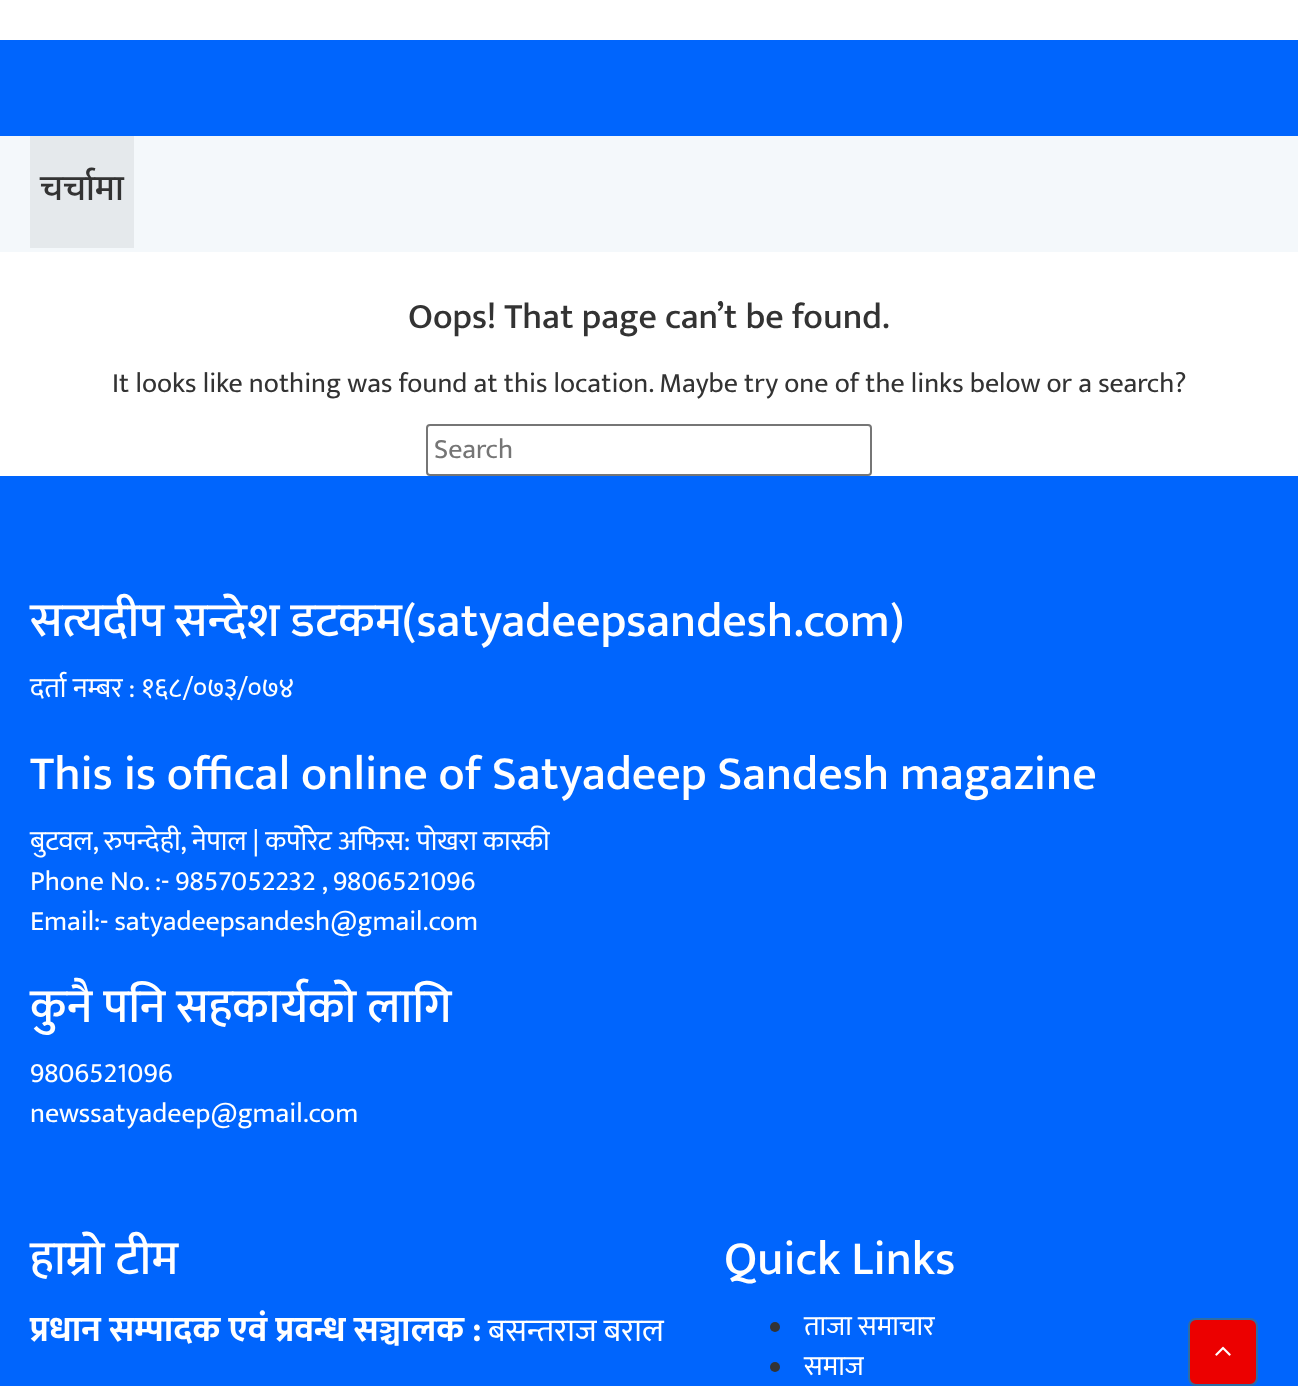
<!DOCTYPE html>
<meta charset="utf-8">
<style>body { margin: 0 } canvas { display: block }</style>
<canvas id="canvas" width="1298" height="1386"></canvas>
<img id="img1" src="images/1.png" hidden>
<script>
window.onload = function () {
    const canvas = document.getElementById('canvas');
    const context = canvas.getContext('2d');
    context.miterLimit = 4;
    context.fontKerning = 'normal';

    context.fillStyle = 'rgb(255, 255, 255)';
    context.fillRect(0, 0, 1298, 1386);
    context.fillStyle = 'rgb(0, 101, 253)';
    context.fillRect(0, 40, 1298, 96);
    context.fillStyle = 'rgb(244, 248, 251)';
    context.fillRect(0, 136, 1298, 116);
    context.fillStyle = 'rgb(229, 233, 236)';
    context.fillRect(30, 136, 104, 112);
    context.beginPath();
    context.roundRect(427, 425, 444, 50, 3);
    context.strokeStyle = 'rgb(118, 118, 118)';
    context.lineWidth = 2;
    context.stroke();
    context.fillStyle = 'rgb(0, 101, 253)';
    context.fillRect(0, 476, 1298, 910);
    context.fillStyle = 'rgb(51, 51, 51)';
    context.beginPath();
    context.arc(775, 1327, 5, 0, 2 * Math.PI);
    context.fill();
    context.beginPath();
    context.arc(775, 1367, 5, 0, 2 * Math.PI);
    context.fill();
    context.fillStyle = 'rgb(236, 0, 0)';
    context.beginPath();
    context.roundRect(1189, 1319, 68, 66, 7);
    context.fill();
    context.strokeStyle = 'rgb(46, 109, 164)';
    context.stroke();
    context.drawImage(document.getElementById('img1'), 1215, 1346, 16, 10);
    context.font = '500 36px Mukta';
    context.fillStyle = 'rgb(51, 51, 51)';
    context.fillText('चर्चामा', 40, 200);
    context.fillText('Oops! That page can’t be found.', 408, 328);
    context.font = '28px Mukta';
    context.fillText('It looks like nothing was found at this location. Maybe try one of the links below or a search?', 112, 392);
    context.fillStyle = 'rgb(117, 117, 117)';
    context.fillText('Search', 434, 458);
    context.font = '500 48px Mukta';
    context.fillStyle = 'rgb(255, 255, 255)';
    context.fillText('सत्यदीप सन्देश डटकम(satyadeepsandesh.com)', 30, 636);
    context.font = '28px Mukta';
    context.fillText('दर्ता नम्बर : १६८/०७३/०७४', 30, 697);
    context.font = '500 48px Mukta';
    context.fillText('This is offical online of Satyadeep Sandesh magazine', 30, 789);
    context.font = '28px Mukta';
    context.fillText('बुटवल, रुपन्देही, नेपाल | कर्पोरेट अफिस: पोखरा कास्की', 30, 850);
    context.fillText('Phone No. :- 9857052232 , 9806521096', 30, 890);
    context.fillText('Email:- satyadeepsandesh@gmail.com', 30, 930);
    context.font = '500 48px Mukta';
    context.fillText('कुनै पनि सहकार्यको लागि', 30, 1022);
    context.font = '28px Mukta';
    context.fillText('9806521096', 30, 1082);
    context.fillText('newssatyadeep@gmail.com', 30, 1122);
    context.font = '500 48px Mukta';
    context.fillText('हाम्रो टीम', 30, 1274);
    context.font = 'bold 36px Mukta';
    context.fillText('प्रधान सम्पादक एवं प्रवन्ध सञ्चालक :', 30, 1341);
    context.font = '32px Mukta';
    context.fillText('बसन्तराज बराल', 488, 1341);
    context.font = '500 48px Mukta';
    context.fillText('Quick Links', 724, 1274);
    context.font = '28px Mukta';
    context.fillText('ताजा समाचार', 804, 1335);
    context.fillText('समाज', 804, 1375);
};
</script>
